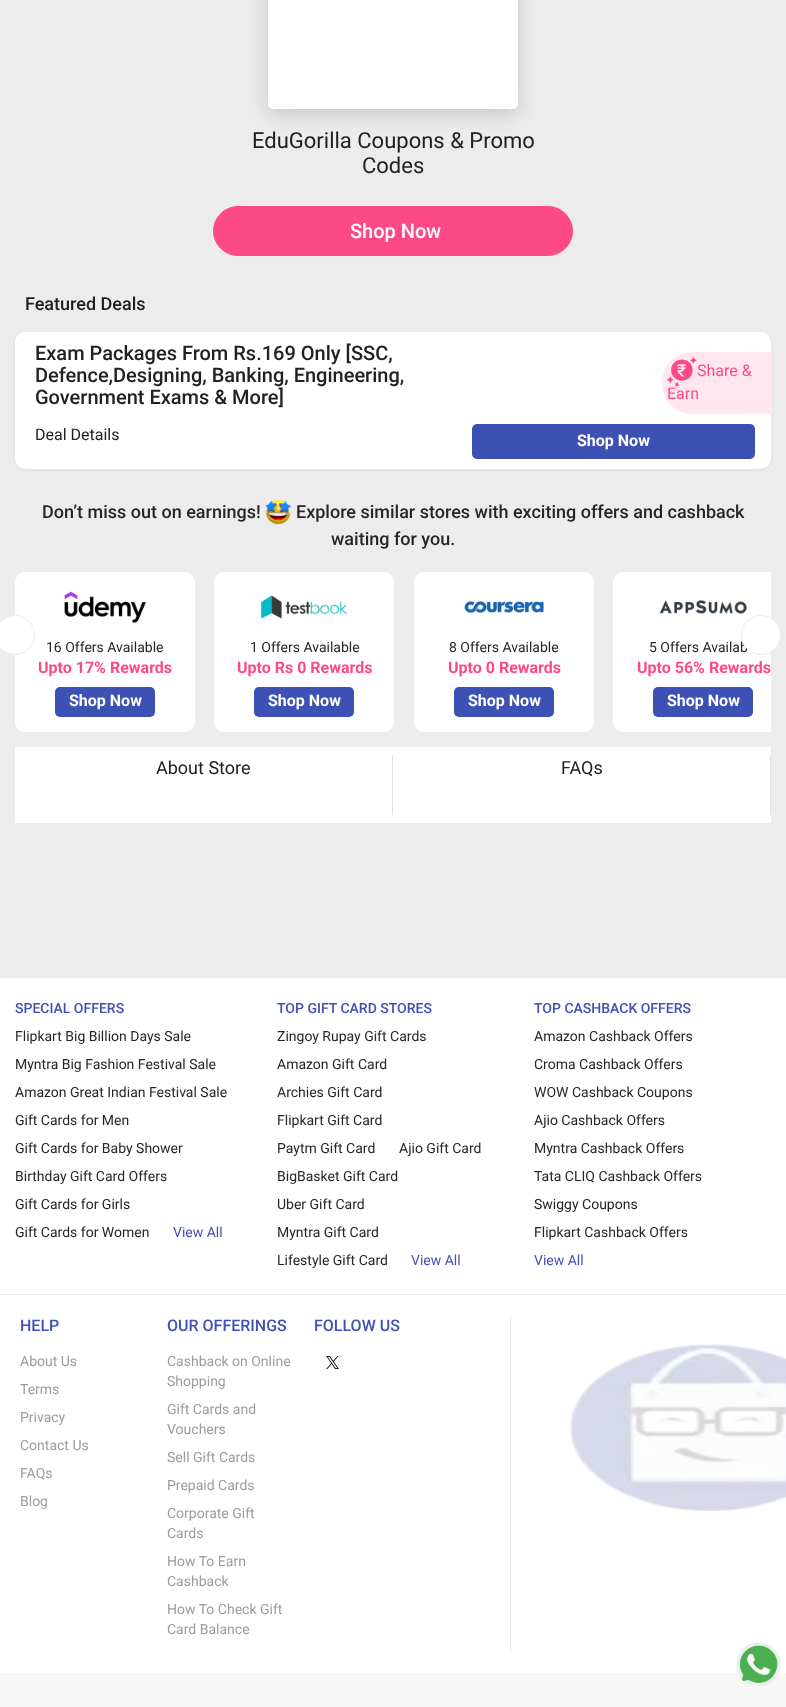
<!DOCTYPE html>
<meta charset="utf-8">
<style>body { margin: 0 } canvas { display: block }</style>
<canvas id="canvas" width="786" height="1707"></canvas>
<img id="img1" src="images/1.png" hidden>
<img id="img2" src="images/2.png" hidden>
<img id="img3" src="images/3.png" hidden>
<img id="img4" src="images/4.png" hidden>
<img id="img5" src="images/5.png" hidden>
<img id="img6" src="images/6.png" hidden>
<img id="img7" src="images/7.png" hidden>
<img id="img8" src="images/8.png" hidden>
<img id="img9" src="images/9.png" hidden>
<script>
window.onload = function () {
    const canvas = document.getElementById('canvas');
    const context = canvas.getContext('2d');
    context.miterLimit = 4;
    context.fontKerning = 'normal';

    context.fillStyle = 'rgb(247, 247, 247)';
    context.fillRect(0, 0, 786, 1707);
    context.fillStyle = 'rgb(236, 236, 236)';
    context.fillRect(0, 0, 786, 978);
    context.fillStyle = 'rgba(0, 0, 0, 0.16)';
    context.filter = 'blur(10px)';
    context.beginPath();
    context.roundRect(268, -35, 250, 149, 5);
    context.fill();
    context.filter = 'none';
    context.fillStyle = 'rgb(255, 255, 255)';
    context.beginPath();
    context.roundRect(268, -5, 250, 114, 5);
    context.fill();
    context.fillStyle = 'rgb(254, 73, 135)';
    context.beginPath();
    context.roundRect(213.5, 206.5, 359, 49, 24.5);
    context.fill();
    context.strokeStyle = 'rgb(254, 73, 135)';
    context.stroke();
    context.fillStyle = 'rgba(0, 0, 0, 0.07)';
    context.filter = 'blur(1.5px)';
    context.beginPath();
    context.roundRect(15, 333, 756, 137, 10);
    context.fill();
    context.filter = 'none';
    context.fillStyle = 'rgb(255, 255, 255)';
    context.beginPath();
    context.roundRect(15, 332, 756, 137, 10);
    context.fill();
    context.fillStyle = 'rgb(255, 230, 239)';
    context.beginPath();
    context.roundRect(662, 352, 110, 62, [30, 0, 0, 30]);
    context.fill();
    context.drawImage(document.getElementById('img1'), 667, 357, 30, 30);
    context.fillStyle = 'rgb(61, 81, 180)';
    context.beginPath();
    context.roundRect(472, 424, 283, 35, 5);
    context.fill();
    context.drawImage(document.getElementById('img2'), 265, 500, 26, 25);
    context.fillStyle = 'rgb(255, 255, 255)';
    context.beginPath();
    context.roundRect(15, 572, 180, 160, 10);
    context.fill();
    context.beginPath();
    context.arc(15, 635, 19.5, 0, 2 * Math.PI);
    context.fill();
    context.strokeStyle = 'rgb(236, 236, 236)';
    context.stroke();
    context.drawImage(document.getElementById('img3'), 64, 591, 83, 32);
    context.fillStyle = 'rgb(61, 81, 180)';
    context.beginPath();
    context.roundRect(55, 687, 100, 30, 5);
    context.fill();
    context.fillStyle = 'rgb(255, 255, 255)';
    context.beginPath();
    context.roundRect(214, 572, 180, 160, 10);
    context.fill();
    context.drawImage(document.getElementById('img4'), 261, 595, 87, 24);
    context.fillStyle = 'rgb(61, 81, 180)';
    context.beginPath();
    context.roundRect(254, 687, 100, 30, 5);
    context.fill();
    context.fillStyle = 'rgb(255, 255, 255)';
    context.beginPath();
    context.roundRect(414, 572, 180, 160, 10);
    context.fill();
    context.drawImage(document.getElementById('img5'), 464, 601, 80, 12);
    context.fillStyle = 'rgb(61, 81, 180)';
    context.beginPath();
    context.roundRect(454, 687, 100, 30, 5);
    context.fill();
    context.fillStyle = 'rgb(255, 255, 255)';
    context.beginPath();
    context.roundRect(613, 572, 158, 160, [10, 0, 0, 10]);
    context.fill();
    context.drawImage(document.getElementById('img6'), 659, 599, 88, 15);
    context.fillStyle = 'rgb(61, 81, 180)';
    context.beginPath();
    context.roundRect(653, 687, 100, 30, 5);
    context.fill();
    context.fillStyle = 'rgb(255, 255, 255)';
    context.fillRect(15, 747, 756, 76);
    context.fillStyle = 'rgb(226, 226, 226)';
    context.fillRect(392, 755, 1, 60);
    context.fillRect(770, 755, 1, 60);
    context.fillStyle = 'rgb(255, 255, 255)';
    context.fillRect(0, 978, 786, 695);
    context.drawImage(document.getElementById('img7'), 736, 1642, 45, 45);
    context.fillStyle = 'rgb(236, 236, 236)';
    context.fillRect(0, 1294, 786, 1);
    context.fillRect(510, 1315, 1, 338);
    context.drawImage(document.getElementById('img8'), 326, 1356, 13, 13);
    context.drawImage(document.getElementById('img9'), 569, 1344, 217, 167);
    context.font = '22px Roboto';
    context.fillStyle = 'rgb(33, 33, 33)';
    context.fillText('EduGorilla Coupons & Promo', 252, 148);
    context.fillText('Codes', 362, 173);
    context.font = '500 20px Roboto';
    context.fillStyle = 'rgb(255, 255, 255)';
    context.fillText('Shop Now', 350, 238);
    context.font = '500 18px Roboto';
    context.fillStyle = 'rgb(33, 33, 33)';
    context.fillText('Featured Deals', 25, 310);
    context.font = '500 20px Roboto';
    context.fillText('Exam Packages From Rs.169 Only [SSC,', 35, 360);
    context.fillText('Defence,Designing, Banking, Engineering,', 35, 382);
    context.fillText('Government Exams & More]', 35, 404);
    context.font = '16px Roboto';
    context.fillStyle = 'rgb(254, 73, 134)';
    context.fillText('Share &', 697, 376);
    context.fillText('Earn', 667, 399);
    context.fillStyle = 'rgb(33, 33, 33)';
    context.fillText('Deal Details', 35, 440);
    context.font = 'bold 16px Roboto';
    context.fillStyle = 'rgb(255, 255, 255)';
    context.fillText('Shop Now', 577, 446);
    context.font = '500 18px Roboto';
    context.fillStyle = 'rgb(43, 36, 36)';
    context.fillText('Don’t miss out on earnings!', 42, 518);
    context.fillText('Explore similar stores with exciting offers and cashback', 296, 518);
    context.fillText('waiting for you.', 331, 545);
    context.font = '14px Roboto';
    context.fillText('16 Offers Available', 46, 652);
    context.font = 'bold 16px Roboto';
    context.fillStyle = 'rgb(254, 73, 134)';
    context.fillText('Upto 17% Rewards', 38, 673);
    context.fillStyle = 'rgb(255, 255, 255)';
    context.fillText('Shop Now', 69, 706);
    context.font = '14px Roboto';
    context.fillStyle = 'rgb(43, 36, 36)';
    context.fillText('1 Offers Available', 250, 652);
    context.font = 'bold 16px Roboto';
    context.fillStyle = 'rgb(254, 73, 134)';
    context.fillText('Upto Rs 0 Rewards', 237, 673);
    context.fillStyle = 'rgb(255, 255, 255)';
    context.fillText('Shop Now', 268, 706);
    context.font = '14px Roboto';
    context.fillStyle = 'rgb(43, 36, 36)';
    context.fillText('8 Offers Available', 449, 652);
    context.font = 'bold 16px Roboto';
    context.fillStyle = 'rgb(254, 73, 134)';
    context.fillText('Upto 0 Rewards', 448, 673);
    context.fillStyle = 'rgb(255, 255, 255)';
    context.fillText('Shop Now', 468, 706);
    context.font = '14px Roboto';
    context.fillStyle = 'rgb(43, 36, 36)';
    context.fillText('5 Offers Availab', 649, 652);
    context.fillStyle = 'rgb(255, 255, 255)';
    context.beginPath();
    context.arc(761, 635, 19.5, 0, 2 * Math.PI);
    context.fill();
    context.stroke();
    context.font = 'bold 16px Roboto';
    context.fillStyle = 'rgb(254, 73, 134)';
    context.fillText('Upto 56% Rewards', 637, 673);
    context.fillStyle = 'rgb(255, 255, 255)';
    context.fillText('Shop Now', 667, 706);
    context.font = '18px Roboto';
    context.fillStyle = 'rgb(33, 33, 33)';
    context.fillText('About Store', 156, 774);
    context.fillText('FAQs', 561, 774);
    context.font = '500 14px Roboto';
    context.fillStyle = 'rgb(63, 81, 181)';
    context.fillText('SPECIAL OFFERS', 15, 1013);
    context.font = '14px Roboto';
    context.fillStyle = 'rgb(43, 36, 36)';
    context.fillText('Flipkart Big Billion Days Sale', 15, 1041);
    context.fillText('Myntra Big Fashion Festival Sale', 15, 1069);
    context.fillText('Amazon Great Indian Festival Sale', 15, 1097);
    context.fillText('Gift Cards for Men', 15, 1125);
    context.fillText('Gift Cards for Baby Shower', 15, 1153);
    context.fillText('Birthday Gift Card Offers', 15, 1181);
    context.fillText('Gift Cards for Girls', 15, 1209);
    context.fillText('Gift Cards for Women', 15, 1237);
    context.fillStyle = 'rgb(63, 81, 181)';
    context.fillText('View All', 173, 1237);
    context.font = '500 14px Roboto';
    context.fillText('TOP GIFT CARD STORES', 277, 1013);
    context.font = '14px Roboto';
    context.fillStyle = 'rgb(43, 36, 36)';
    context.fillText('Zingoy Rupay Gift Cards', 277, 1041);
    context.fillText('Amazon Gift Card', 277, 1069);
    context.fillText('Archies Gift Card', 277, 1097);
    context.fillText('Flipkart Gift Card', 277, 1125);
    context.fillText('Paytm Gift Card', 277, 1153);
    context.fillText('Ajio Gift Card', 399, 1153);
    context.fillText('BigBasket Gift Card', 277, 1181);
    context.fillText('Uber Gift Card', 277, 1209);
    context.fillText('Myntra Gift Card', 277, 1237);
    context.fillText('Lifestyle Gift Card', 277, 1265);
    context.fillStyle = 'rgb(63, 81, 181)';
    context.fillText('View All', 411, 1265);
    context.font = '500 14px Roboto';
    context.fillText('TOP CASHBACK OFFERS', 534, 1013);
    context.font = '14px Roboto';
    context.fillStyle = 'rgb(43, 36, 36)';
    context.fillText('Amazon Cashback Offers', 534, 1041);
    context.fillText('Croma Cashback Offers', 534, 1069);
    context.fillText('WOW Cashback Coupons', 534, 1097);
    context.fillText('Ajio Cashback Offers', 534, 1125);
    context.fillText('Myntra Cashback Offers', 534, 1153);
    context.fillText('Tata CLIQ Cashback Offers', 534, 1181);
    context.fillText('Swiggy Coupons', 534, 1209);
    context.fillText('Flipkart Cashback Offers', 534, 1237);
    context.fillStyle = 'rgb(63, 81, 181)';
    context.fillText('View All', 534, 1265);
    context.font = '500 16px Roboto';
    context.fillText('HELP', 20, 1331);
    context.font = '14px Roboto';
    context.fillStyle = 'rgb(157, 156, 156)';
    context.fillText('About Us', 20, 1366);
    context.fillText('Terms', 20, 1394);
    context.fillText('Privacy', 20, 1422);
    context.fillText('Contact Us', 20, 1450);
    context.fillText('FAQs', 20, 1478);
    context.fillText('Blog', 20, 1506);
    context.font = '500 16px Roboto';
    context.fillStyle = 'rgb(63, 81, 181)';
    context.fillText('OUR OFFERINGS', 167, 1331);
    context.font = '14px Roboto';
    context.fillStyle = 'rgb(157, 156, 156)';
    context.fillText('Cashback on Online', 167, 1366);
    context.fillText('Shopping', 167, 1386);
    context.fillText('Gift Cards and', 167, 1414);
    context.fillText('Vouchers', 167, 1434);
    context.fillText('Sell Gift Cards', 167, 1462);
    context.fillText('Prepaid Cards', 167, 1490);
    context.fillText('Corporate Gift', 167, 1518);
    context.fillText('Cards', 167, 1538);
    context.fillText('How To Earn', 167, 1566);
    context.fillText('Cashback', 167, 1586);
    context.fillText('How To Check Gift', 167, 1614);
    context.fillText('Card Balance', 167, 1634);
    context.font = '500 16px Roboto';
    context.fillStyle = 'rgb(63, 81, 181)';
    context.fillText('FOLLOW US', 314, 1331);
};
</script>
